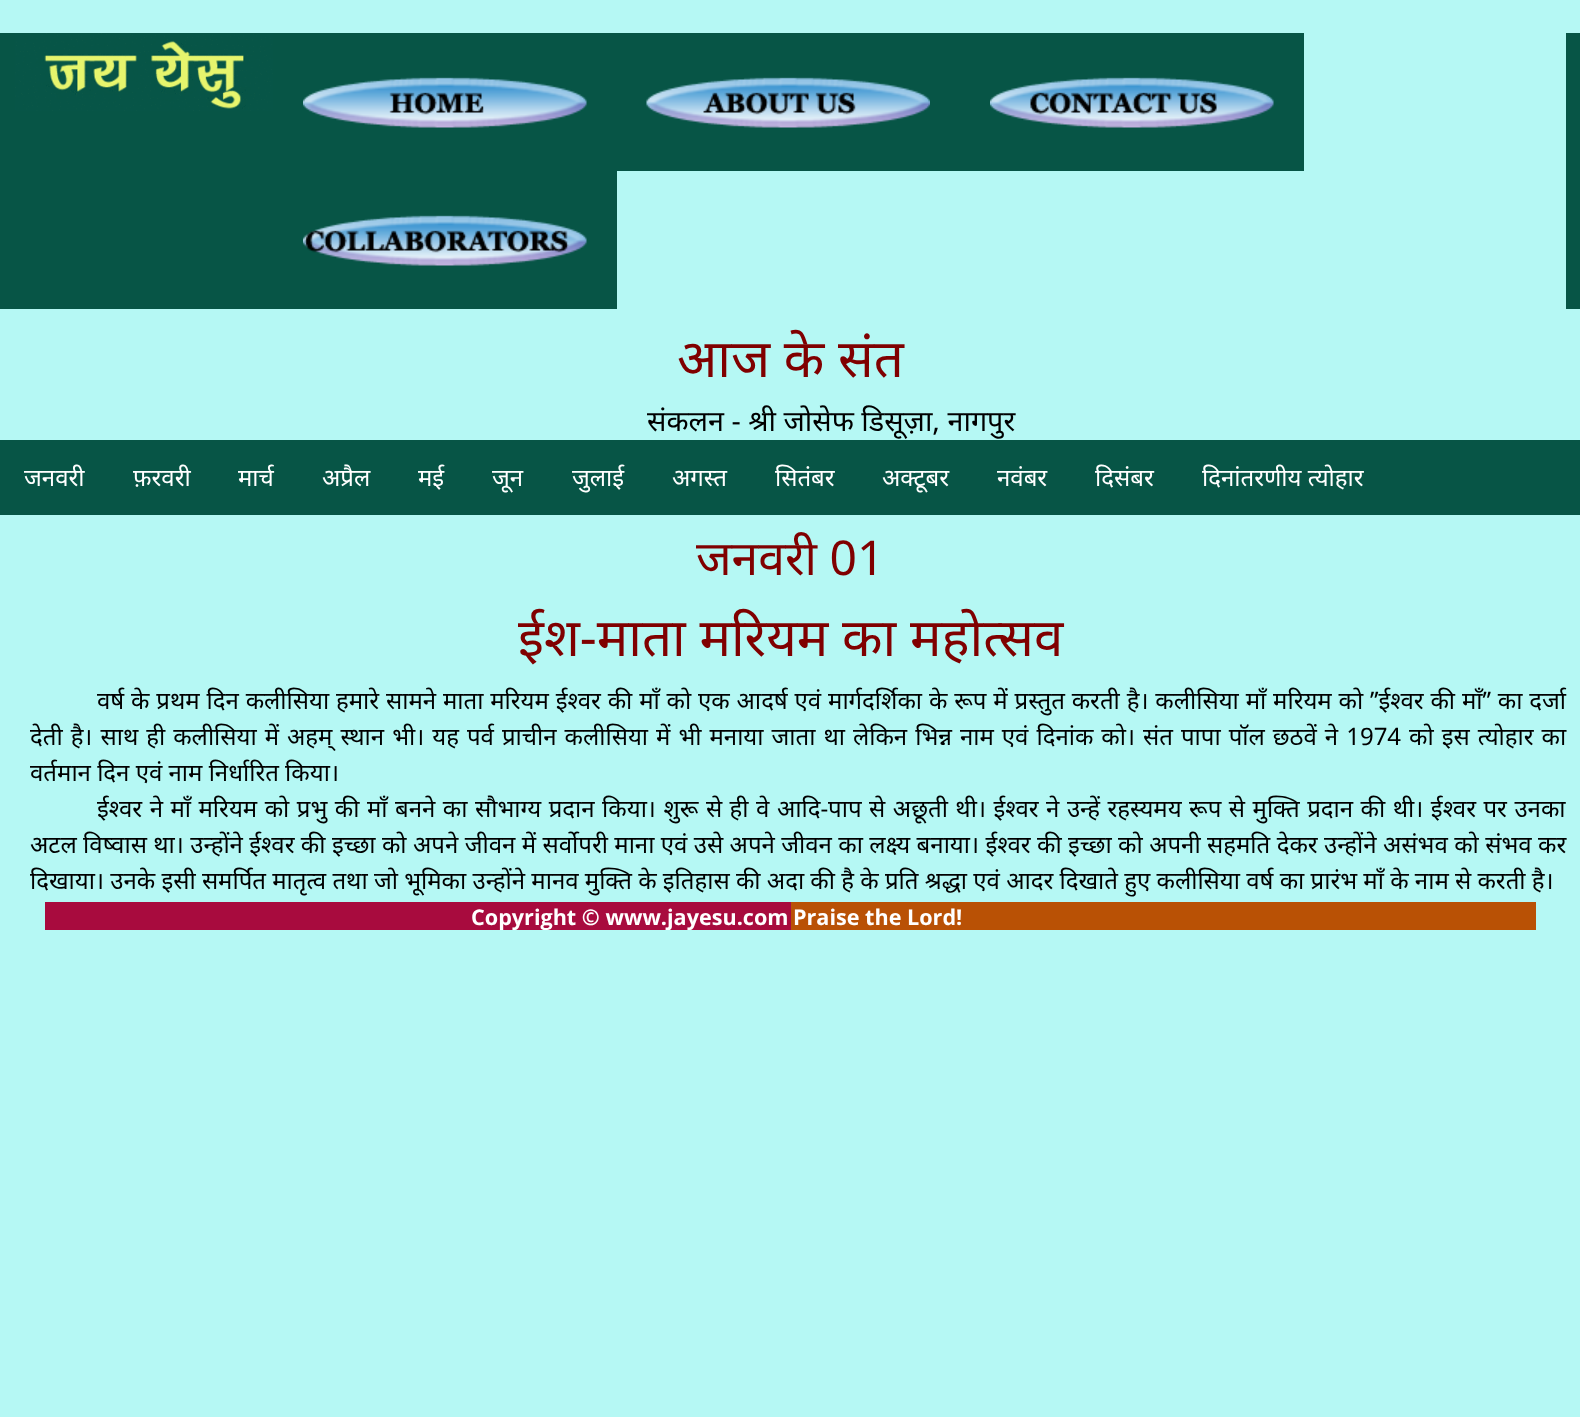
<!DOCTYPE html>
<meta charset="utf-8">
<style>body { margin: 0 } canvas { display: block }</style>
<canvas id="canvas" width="1580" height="1417"></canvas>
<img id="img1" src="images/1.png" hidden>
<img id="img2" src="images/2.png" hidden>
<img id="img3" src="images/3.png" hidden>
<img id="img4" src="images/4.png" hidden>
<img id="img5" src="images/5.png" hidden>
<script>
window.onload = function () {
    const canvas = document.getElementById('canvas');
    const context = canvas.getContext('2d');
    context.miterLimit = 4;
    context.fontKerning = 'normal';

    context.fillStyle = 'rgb(181, 248, 244)';
    context.fillRect(0, 0, 1580, 1417);
    context.fillStyle = 'rgb(7, 85, 70)';
    context.fillRect(0, 33, 1580, 276);
    context.drawImage(document.getElementById('img1'), 15, 33, 258, 78);
    context.fillStyle = 'rgb(181, 248, 244)';
    context.fillRect(617, 33, 949, 276);
    context.drawImage(document.getElementById('img2'), 303, 77, 284, 51);
    context.fillStyle = 'rgb(7, 85, 70)';
    context.fillRect(617, 33, 687, 138);
    context.drawImage(document.getElementById('img3'), 646, 77, 284, 51);
    context.drawImage(document.getElementById('img4'), 990, 77, 284, 51);
    context.drawImage(document.getElementById('img5'), 303, 215, 284, 51);
    context.fillRect(0, 440, 1580, 75);
    context.fillStyle = 'rgb(168, 11, 62)';
    context.fillRect(45, 902, 746, 28);
    context.fillStyle = 'rgb(185, 81, 5)';
    context.fillRect(791, 902, 745, 28);
    context.font = '52.75px Noto Sans';
    context.fillStyle = 'rgb(128, 0, 0)';
    context.fillText('आज के संत', 677, 377);
    context.font = '28.75px Noto Sans';
    context.fillStyle = 'rgb(0, 0, 0)';
    context.fillText('संकलन - श्री जोसेफ डिसूज़ा, नागपुर', 647, 431);
    context.font = '24px Noto Sans';
    context.fillStyle = 'rgb(255, 255, 255)';
    context.fillText('जनवरी', 24, 486);
    context.fillText('फ़रवरी', 133, 486);
    context.fillText('मार्च', 238, 486);
    context.fillText('अप्रैल', 322, 486);
    context.fillText('मई', 418, 486);
    context.fillText('जून', 492, 486);
    context.fillText('जुलाई', 572, 486);
    context.fillText('अगस्त', 672, 486);
    context.fillText('सितंबर', 775, 486);
    context.fillText('अक्टूबर', 882, 486);
    context.fillText('नवंबर', 997, 486);
    context.fillText('दिसंबर', 1095, 486);
    context.fillText('दिनांतरणीय त्योहार', 1202, 486);
    context.font = '48px Noto Sans';
    context.fillStyle = 'rgb(128, 0, 0)';
    context.fillText('जनवरी 01', 696, 575);
    context.font = '52.75px Noto Sans';
    context.fillText('ईश-माता मरियम का महोत्सव', 518, 656);
    context.wordSpacing = '0.6px';
    context.font = '24px Noto Sans';
    context.fillStyle = 'rgb(0, 0, 0)';
    context.fillText('वर्ष के प्रथम दिन कलीसिया हमारे सामने माता मरियम ईश्वर की माँ को एक आदर्ष एवं मार्गदर्शिका के रूप में प्रस्तुत करती है। कलीसिया माँ मरियम को ’’ईश्वर की माँ’’ का दर्जा', 97, 709);
    context.wordSpacing = '1.75px';
    context.fillText('देती है। साथ ही कलीसिया में अहम् स्थान भी। यह पर्व प्राचीन कलीसिया में भी मनाया जाता था लेकिन भिन्न नाम एवं दिनांक को। संत पापा पॉल छठवें ने 1974 को इस त्योहार का', 30, 745);
    context.wordSpacing = '0px';
    context.fillText('वर्तमान दिन एवं नाम निर्धारित किया।', 30, 781);
    context.wordSpacing = '1.25px';
    context.fillText('ईश्वर ने माँ मरियम को प्रभु की माँ बनने का सौभाग्य प्रदान किया। शुरू से ही वे आदि-पाप से अछूती थी। ईश्वर ने उन्हें रहस्यमय रूप से मुक्ति प्रदान की थी। ईश्वर पर उनका', 97, 817);
    context.wordSpacing = '0.15px';
    context.fillText('अटल विष्वास था। उन्होंने ईश्वर की इच्छा को अपने जीवन में सर्वोपरी माना एवं उसे अपने जीवन का लक्ष्य बनाया। ईश्वर की इच्छा को अपनी सहमति देकर उन्होंने असंभव को संभव कर', 30, 853);
    context.wordSpacing = '0px';
    context.fillText('दिखाया। उनके इसी समर्पित मातृत्व तथा जो भूमिका उन्होंने मानव मुक्ति के इतिहास की अदा की है के प्रति श्रद्धा एवं आदर दिखाते हुए कलीसिया वर्ष का प्रारंभ माँ के नाम से करती है।', 30, 889);
    context.save();
    context.beginPath();
    context.rect(45, 902, 746, 28);
    context.clip();
    context.font = 'bold 21.6px Open Sans';
    context.fillStyle = 'rgb(255, 255, 255)';
    context.fillText('Copyright © www.jayesu.com', 471, 925);
    context.restore();
    context.font = 'bold 21.6px Open Sans';
    context.fillStyle = 'rgb(255, 255, 255)';
    context.fillText('Praise the Lord!', 793, 925);
};
</script>
